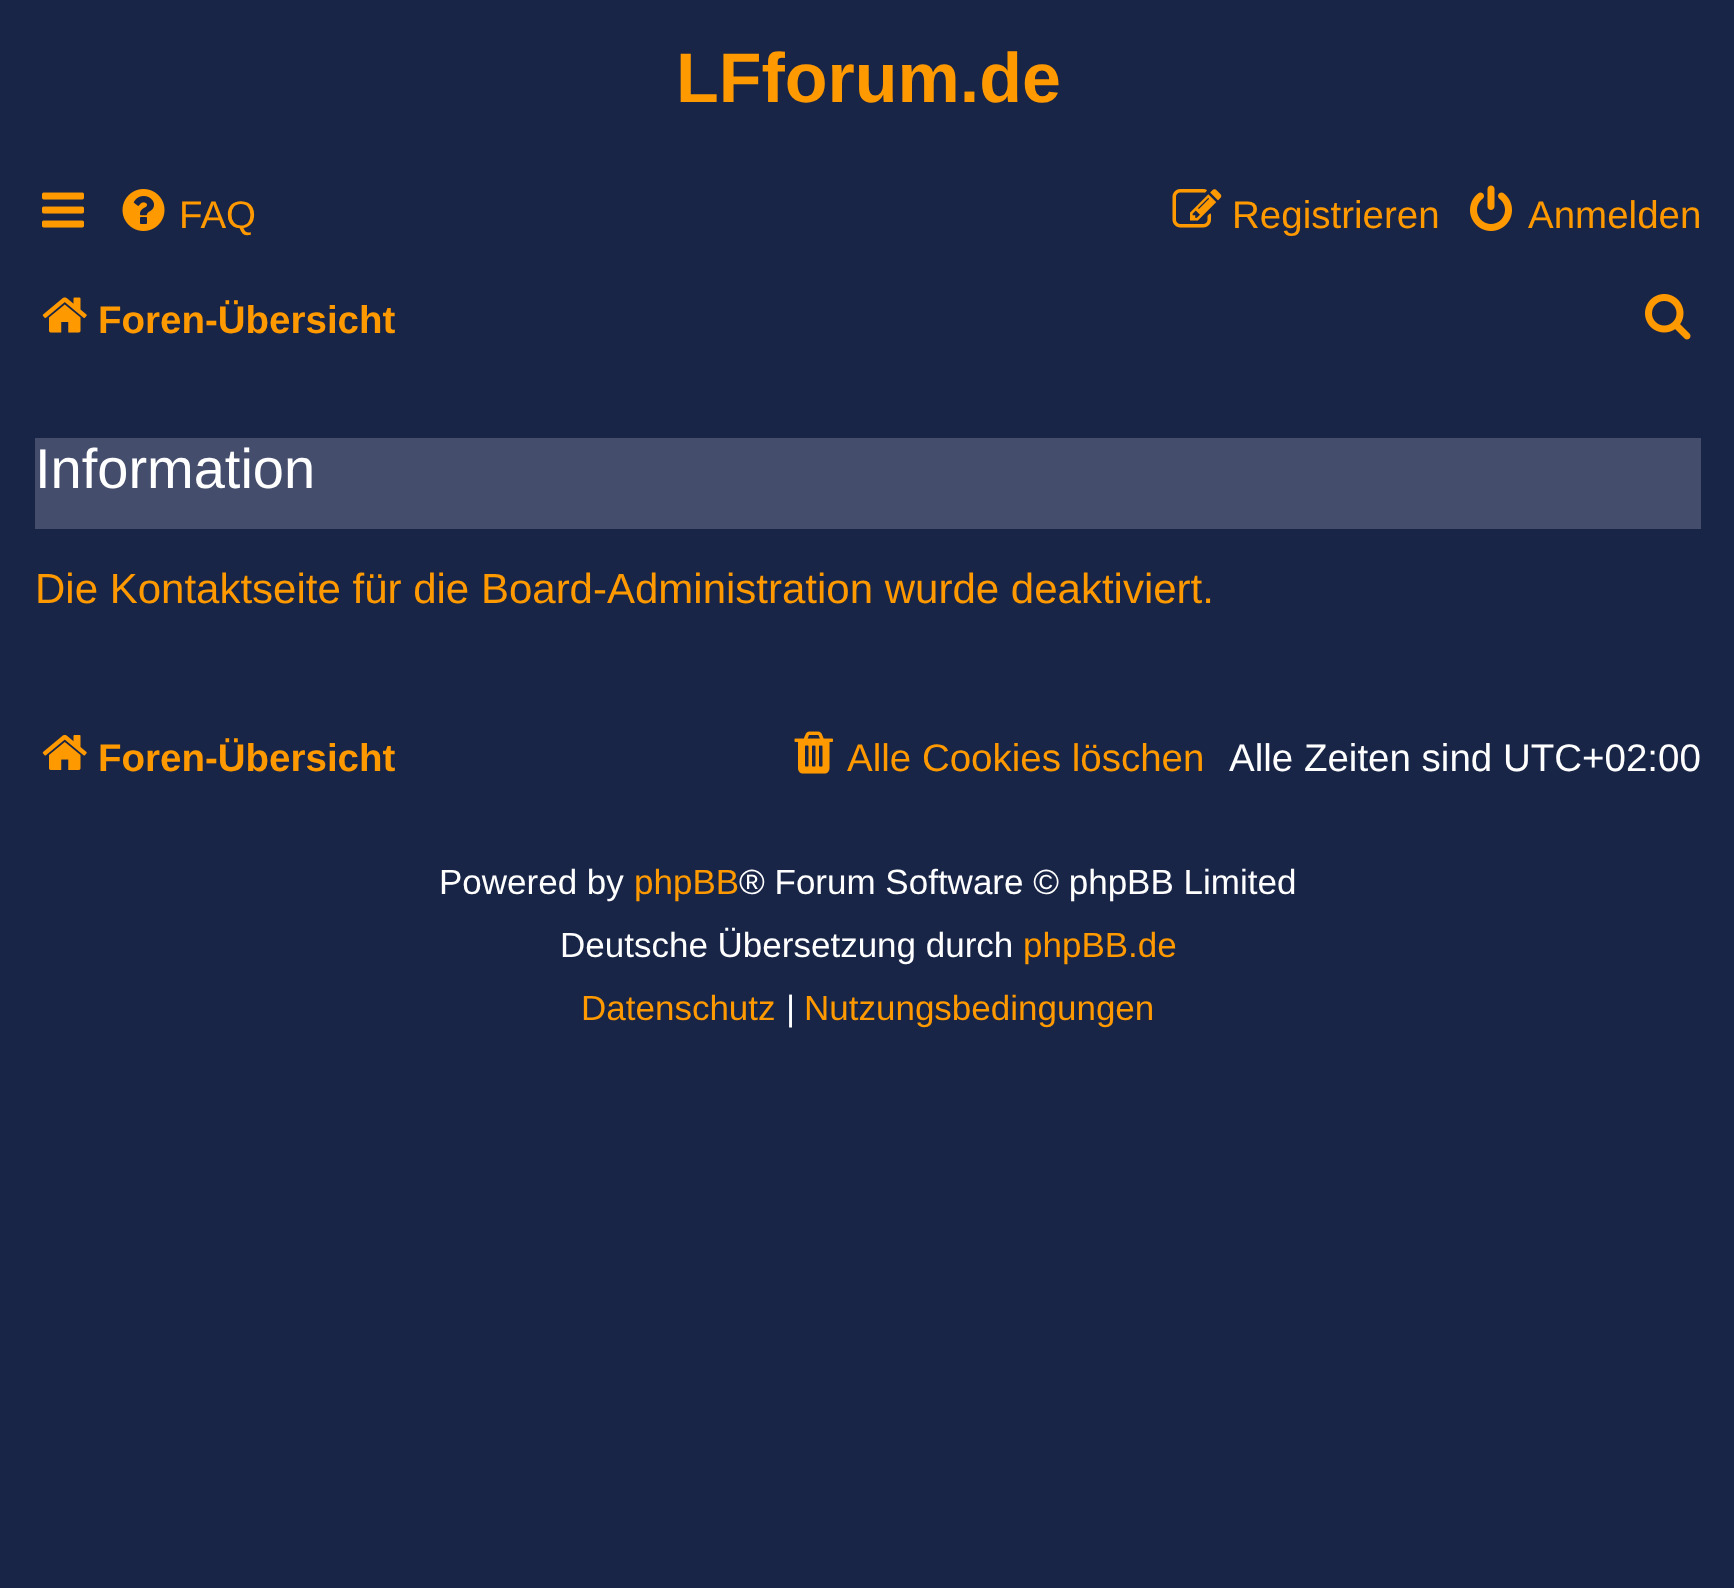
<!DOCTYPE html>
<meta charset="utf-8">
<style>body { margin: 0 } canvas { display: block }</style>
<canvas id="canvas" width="1734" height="1588"></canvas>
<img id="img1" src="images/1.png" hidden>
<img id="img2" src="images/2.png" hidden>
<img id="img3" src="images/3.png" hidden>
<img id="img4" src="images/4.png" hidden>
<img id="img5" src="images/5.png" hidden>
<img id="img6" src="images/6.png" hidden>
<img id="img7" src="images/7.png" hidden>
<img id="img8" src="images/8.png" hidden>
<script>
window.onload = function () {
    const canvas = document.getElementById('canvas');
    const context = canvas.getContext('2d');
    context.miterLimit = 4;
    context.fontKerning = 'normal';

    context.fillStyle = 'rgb(24, 37, 71)';
    context.fillRect(0, 0, 1734, 1588);
    context.drawImage(document.getElementById('img1'), 42, 192, 42, 36);
    context.drawImage(document.getElementById('img2'), 122, 189, 43, 42);
    context.drawImage(document.getElementById('img3'), 1172, 189, 50, 39);
    context.drawImage(document.getElementById('img4'), 1470, 185, 42, 46);
    context.drawImage(document.getElementById('img5'), 42, 297, 45, 36);
    context.drawImage(document.getElementById('img6'), 1645, 294, 46, 46);
    context.fillStyle = 'rgb(69, 77, 108)';
    context.fillRect(35, 438, 1666, 91);
    context.drawImage(document.getElementById('img7'), 42, 734, 45, 36);
    context.drawImage(document.getElementById('img8'), 794, 731, 39, 43);
    context.font = 'bold 70px Liberation Sans';
    context.fillStyle = 'rgb(255, 153, 0)';
    context.fillText('LFforum.de', 676, 102);
    context.font = '38.5px Liberation Sans';
    context.fillText('FAQ', 179, 228);
    context.fillText('Registrieren', 1232, 228);
    context.fillText('Anmelden', 1528, 228);
    context.font = 'bold 38.5px Liberation Sans';
    context.fillText('Foren-Übersicht', 98, 333);
    context.font = '56px Liberation Sans';
    context.fillStyle = 'rgb(255, 255, 255)';
    context.fillText('Information', 35, 488);
    context.font = '42px Liberation Sans';
    context.fillStyle = 'rgb(255, 153, 0)';
    context.fillText('Die Kontaktseite für die Board-Administration wurde deaktiviert.', 35, 603);
    context.font = 'bold 38.5px Liberation Sans';
    context.fillText('Foren-Übersicht', 98, 771);
    context.font = '38.5px Liberation Sans';
    context.fillText('Alle Cookies löschen', 847, 771);
    context.fillStyle = 'rgb(255, 255, 255)';
    context.fillText('Alle Zeiten sind UTC+02:00', 1229, 771);
    context.font = '35px Liberation Sans';
    context.fillText('Powered by', 439, 894);
    context.fillStyle = 'rgb(255, 153, 0)';
    context.fillText('phpBB', 634, 894);
    context.fillStyle = 'rgb(255, 255, 255)';
    context.fillText('® Forum Software © phpBB Limited', 739, 894);
    context.fillText('Deutsche Übersetzung durch', 560, 957);
    context.fillStyle = 'rgb(255, 153, 0)';
    context.fillText('phpBB.de', 1023, 957);
    context.fillText('Datenschutz', 581, 1020);
    context.fillStyle = 'rgb(255, 255, 255)';
    context.fillText('|', 786, 1020);
    context.fillStyle = 'rgb(255, 153, 0)';
    context.fillText('Nutzungsbedingungen', 804, 1020);
};
</script>
